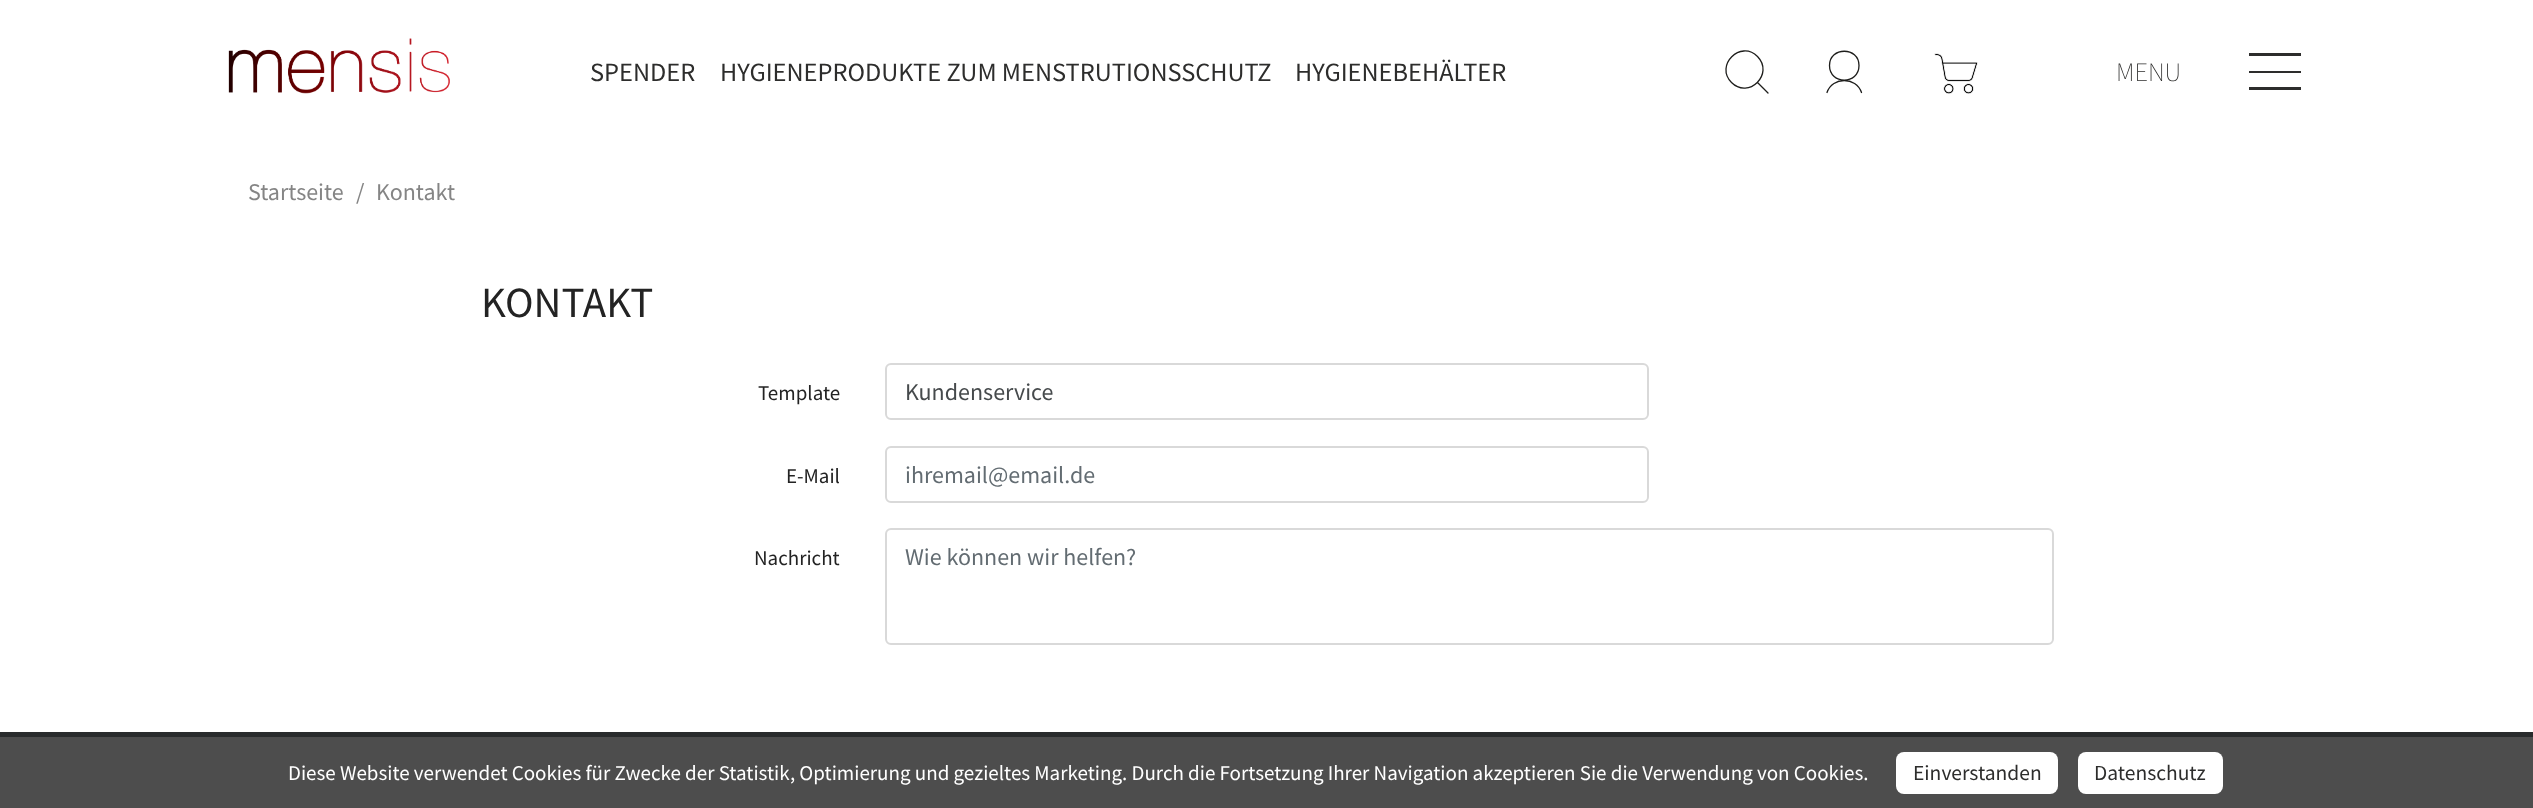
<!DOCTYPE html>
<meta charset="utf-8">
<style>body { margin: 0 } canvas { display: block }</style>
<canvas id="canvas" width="2533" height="808"></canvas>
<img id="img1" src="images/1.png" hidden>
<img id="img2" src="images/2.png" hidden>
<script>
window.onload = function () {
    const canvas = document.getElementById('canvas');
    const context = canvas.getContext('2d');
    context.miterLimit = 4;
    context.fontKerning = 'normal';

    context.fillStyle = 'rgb(255, 255, 255)';
    context.fillRect(0, 0, 2533, 808);
    context.drawImage(document.getElementById('img1'), 228, 38, 222, 56);
    context.beginPath();
    context.moveTo(1757.5, 56.5);
    context.bezierCurveTo(1774.5, 74, 1748.5, 99.5, 1731.5, 82.5);
    context.bezierCurveTo(1714.5, 65.5, 1740.5, 39.5, 1757.5, 56.5);
    context.closePath();
    context.moveTo(1768, 93);
    context.lineTo(1757.5, 82.5);
    context.strokeStyle = 'rgb(29, 29, 27)';
    context.lineWidth = 1.3;
    context.lineCap = 'round';
    context.lineJoin = 'round';
    context.stroke();
    context.beginPath();
    context.moveTo(1859, 65.5);
    context.bezierCurveTo(1859, 85, 1829.5, 85, 1829.5, 65.5);
    context.bezierCurveTo(1829.5, 46.5, 1859, 46.5, 1859, 65.5);
    context.closePath();
    context.moveTo(1861.5, 92.5);
    context.bezierCurveTo(1856, 76.5, 1832.5, 76.5, 1827, 92.5);
    context.stroke();
    context.drawImage(document.getElementById('img2'), 1934, 53, 44, 41);
    context.fillStyle = 'rgb(45, 45, 44)';
    context.fillRect(2249, 53, 52, 3);
    context.fillRect(2249, 71, 52, 2);
    context.fillRect(2249, 87, 52, 3);
    context.beginPath();
    context.roundRect(886, 364, 762, 55, 5);
    context.strokeStyle = 'rgb(217, 217, 217)';
    context.lineWidth = 2;
    context.lineJoin = 'miter';
    context.stroke();
    context.beginPath();
    context.roundRect(886, 447, 762, 55, 5);
    context.stroke();
    context.beginPath();
    context.roundRect(886, 529, 1167, 115, 5);
    context.stroke();
    context.fillStyle = 'rgb(77, 77, 77)';
    context.fillRect(0, 737, 2533, 71);
    context.fillStyle = 'rgb(41, 43, 44)';
    context.fillRect(0, 732, 2533, 5);
    context.fillStyle = 'rgb(255, 255, 255)';
    context.beginPath();
    context.roundRect(1896, 752, 162, 42, 8);
    context.fill();
    context.beginPath();
    context.roundRect(2078, 752, 145, 42, 8);
    context.fill();
    context.font = '26.4px Source Sans Pro';
    context.fillStyle = 'rgb(45, 45, 44)';
    context.fillText('SPENDER', 590, 81);
    context.fillText('HYGIENEPRODUKTE ZUM MENSTRUTIONSSCHUTZ', 720, 81);
    context.fillText('HYGIENEBEHÄLTER', 1295, 81);
    context.font = '200 26.4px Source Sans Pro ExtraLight';
    context.fillText('MENU', 2116, 81);
    context.font = '24px Source Sans Pro';
    context.fillStyle = 'rgb(133, 133, 133)';
    context.fillText('Startseite', 248, 200);
    context.fillText('/', 356, 200);
    context.fillText('Kontakt', 376, 200);
    context.font = '43px Source Sans Pro';
    context.fillStyle = 'rgb(35, 35, 35)';
    context.fillText('KONTAKT', 481, 317);
    context.font = '21px Source Sans Pro';
    context.fillText('Template', 758, 400);
    context.font = '24px Source Sans Pro';
    context.fillStyle = 'rgb(70, 74, 76)';
    context.fillText('Kundenservice', 905, 400);
    context.font = '21px Source Sans Pro';
    context.fillStyle = 'rgb(35, 35, 35)';
    context.fillText('E-Mail', 786, 483);
    context.font = '24px Source Sans Pro';
    context.fillStyle = 'rgb(99, 108, 114)';
    context.fillText('ihremail@email.de', 905, 483);
    context.font = '21px Source Sans Pro';
    context.fillStyle = 'rgb(35, 35, 35)';
    context.fillText('Nachricht', 754, 565);
    context.font = '24px Source Sans Pro';
    context.fillStyle = 'rgb(99, 108, 114)';
    context.fillText('Wie können wir helfen?', 905, 565);
    context.font = '21px Source Sans Pro';
    context.fillStyle = 'rgb(255, 255, 255)';
    context.fillText('Diese Website verwendet Cookies für Zwecke der Statistik, Optimierung und gezieltes Marketing. Durch die Fortsetzung Ihrer Navigation akzeptieren Sie die Verwendung von Cookies.', 288, 780);
    context.font = '21.5px Source Sans Pro';
    context.fillStyle = 'rgb(45, 45, 44)';
    context.fillText('Einverstanden', 1913, 780);
    context.fillText('Datenschutz', 2094, 780);
};
</script>
